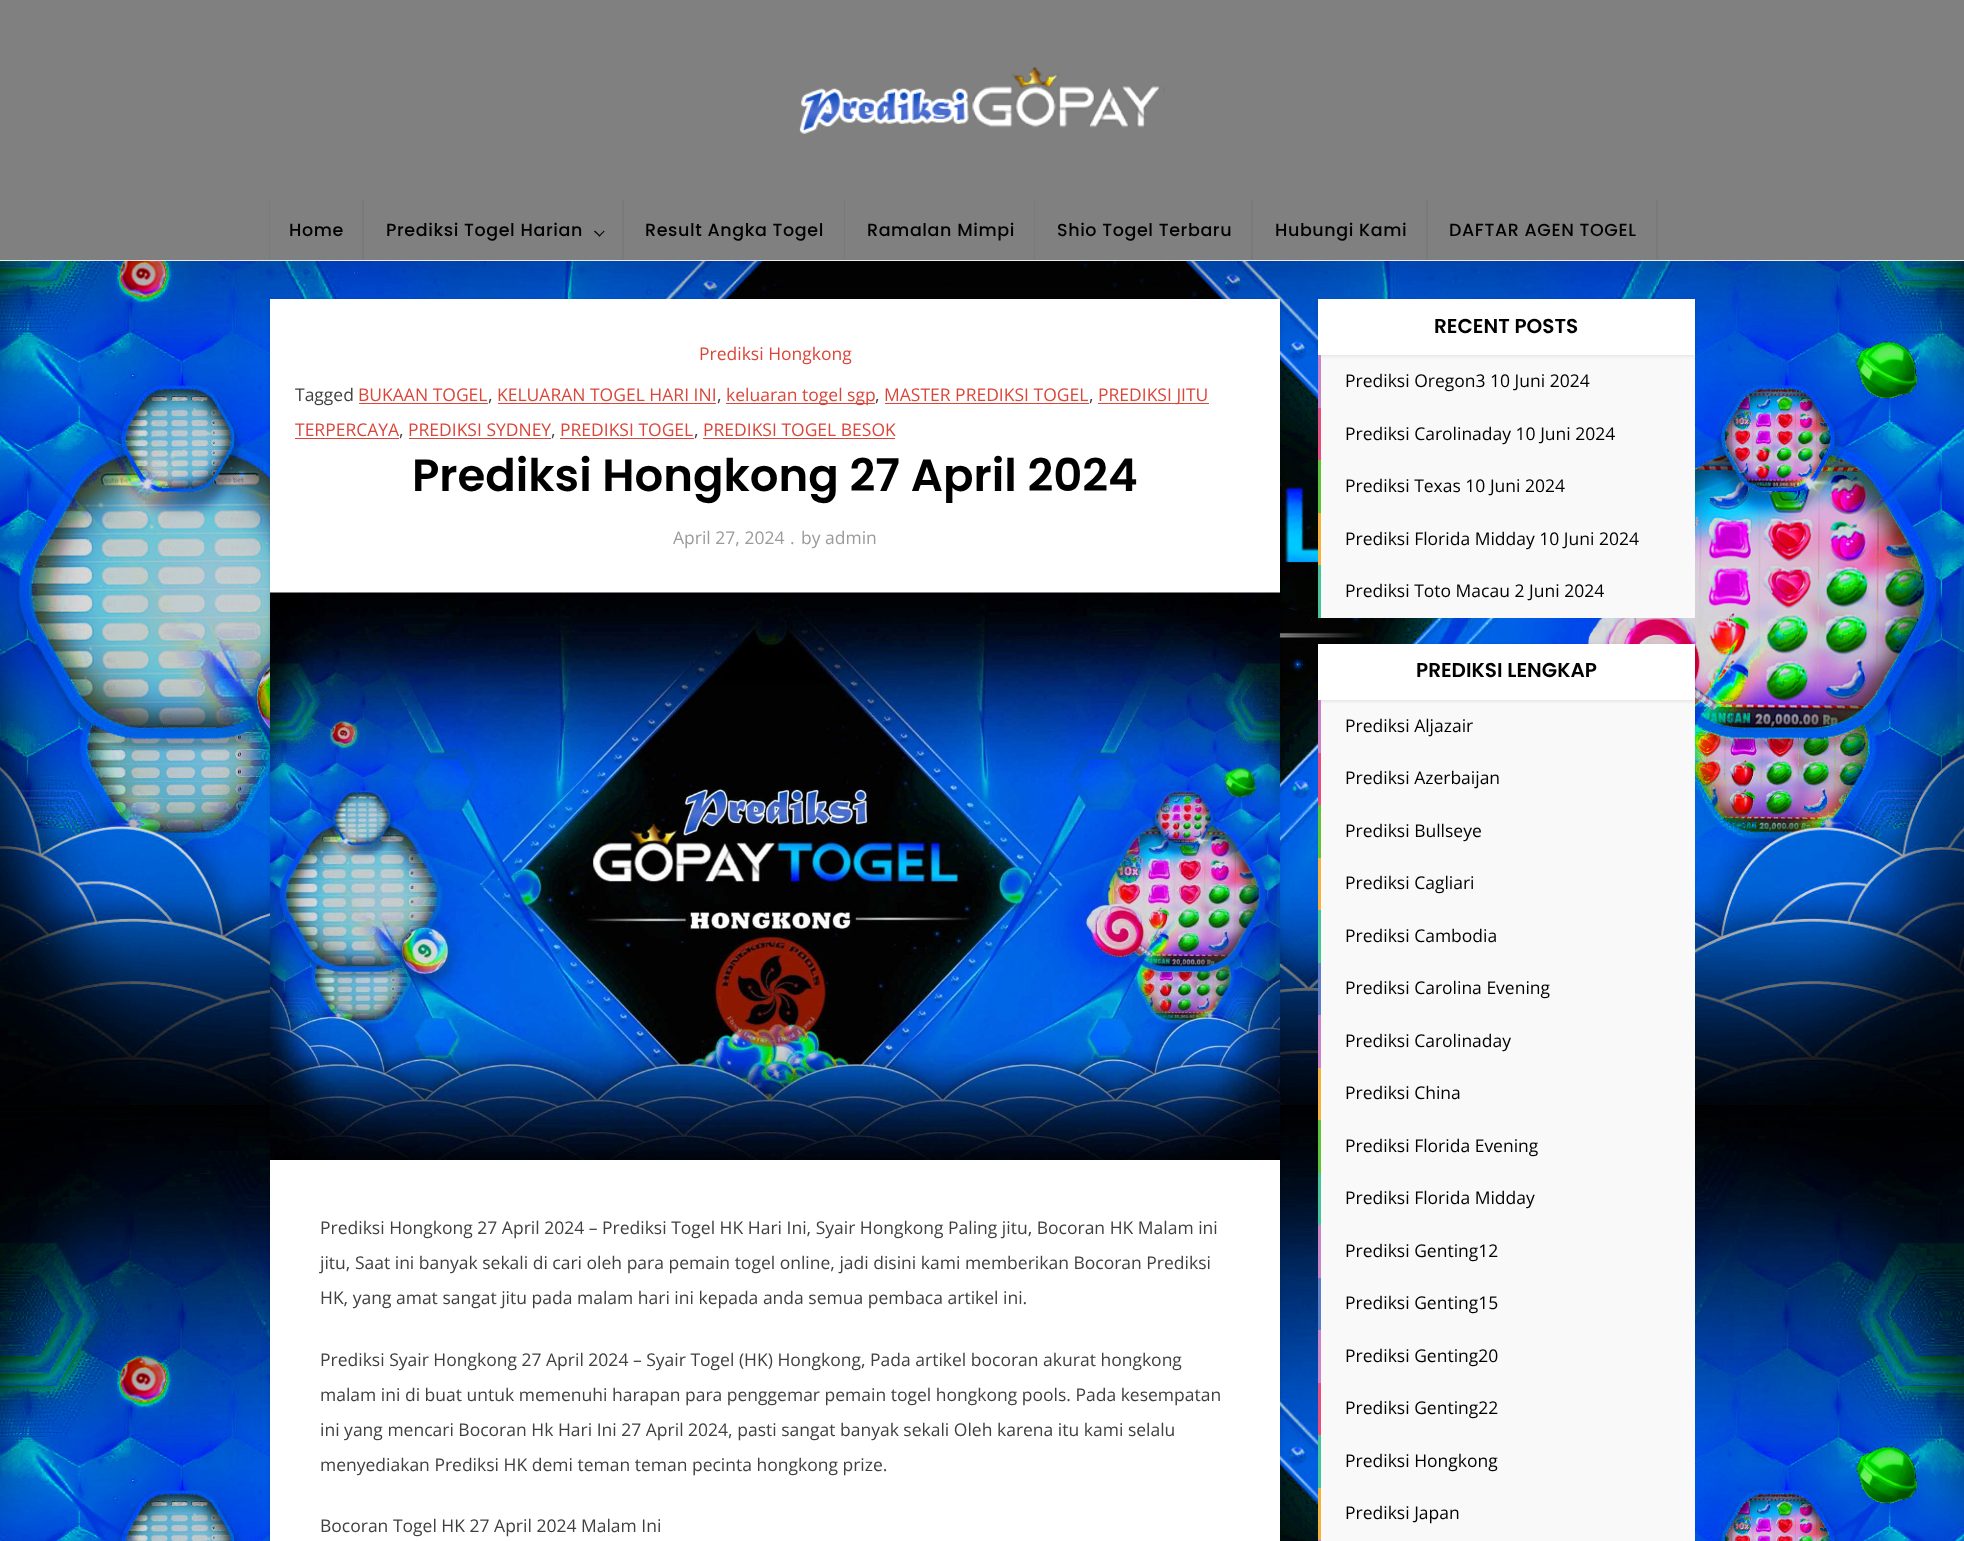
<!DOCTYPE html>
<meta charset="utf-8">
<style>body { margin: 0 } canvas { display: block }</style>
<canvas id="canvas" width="1964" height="1541"></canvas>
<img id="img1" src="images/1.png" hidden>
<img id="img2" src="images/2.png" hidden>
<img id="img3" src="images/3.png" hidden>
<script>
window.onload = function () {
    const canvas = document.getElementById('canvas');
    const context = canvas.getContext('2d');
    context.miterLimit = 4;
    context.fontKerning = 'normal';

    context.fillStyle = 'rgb(255, 255, 255)';
    context.fillRect(0, 0, 1964, 1541);
    context.drawImage(document.getElementById('img1'), 0, 261, 1964, 1280);
    context.fillStyle = 'rgb(236, 236, 236)';
    context.fillRect(0, 260, 1964, 1);
    context.fillStyle = 'rgb(128, 128, 128)';
    context.fillRect(0, 0, 1964, 260);
    context.drawImage(document.getElementById('img2'), 799, 67, 366, 67);
    context.fillStyle = 'rgb(122, 122, 122)';
    context.fillRect(362, 200, 2, 60);
    context.fillRect(269, 200, 1, 60);
    context.fillRect(622, 200, 2, 60);
    context.fillStyle = 'rgb(0, 0, 0)';
    context.beginPath();
    context.moveTo(604, 230.5);
    context.lineTo(604.5, 231.5);
    context.lineTo(599.5, 236.5);
    context.lineTo(598.5, 236);
    context.closePath();
    context.fill();
    context.beginPath();
    context.moveTo(595, 230.5);
    context.lineTo(600.5, 236);
    context.lineTo(599.5, 236.5);
    context.lineTo(594, 231.5);
    context.closePath();
    context.fill();
    context.fillStyle = 'rgb(122, 122, 122)';
    context.fillRect(844, 200, 1, 60);
    context.fillRect(1034, 200, 1, 60);
    context.fillRect(1251, 200, 2, 60);
    context.fillRect(1426, 200, 2, 60);
    context.fillRect(1656, 200, 2, 60);
    context.fillStyle = 'rgba(0, 0, 0, 0.1)';
    context.filter = 'blur(2px)';
    context.beginPath();
    context.rect(270, 300, 1010, 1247);
    context.fill();
    context.filter = 'none';
    context.fillStyle = 'rgb(255, 255, 255)';
    context.fillRect(270, 299, 1010, 1242);
    context.fillStyle = 'rgb(218, 70, 58)';
    context.fillRect(359, 403, 129, 1);
    context.fillRect(498, 403, 218, 1);
    context.fillRect(726, 403, 149, 1);
    context.fillRect(885, 403, 204, 1);
    context.fillRect(1098, 403, 111, 1);
    context.fillRect(295, 438, 104, 1);
    context.fillRect(409, 438, 142, 1);
    context.fillRect(560, 438, 134, 1);
    context.fillRect(703, 438, 192, 1);
    context.drawImage(document.getElementById('img3'), 270, 592, 1010, 568);
    context.fillStyle = 'rgb(249, 249, 249)';
    context.fillRect(1321, 355, 374, 263);
    context.fillStyle = 'rgba(0, 0, 0, 0.1)';
    context.filter = 'blur(2px)';
    context.beginPath();
    context.rect(1318, 300, 377, 56);
    context.fill();
    context.filter = 'none';
    context.fillStyle = 'rgb(255, 255, 255)';
    context.fillRect(1318, 299, 377, 56);
    context.fillStyle = 'rgb(202, 133, 202)';
    context.fillRect(1318, 355, 3, 53);
    context.fillStyle = 'rgb(229, 78, 126)';
    context.fillRect(1318, 408, 3, 52);
    context.fillStyle = 'rgb(97, 196, 54)';
    context.fillRect(1318, 460, 3, 53);
    context.fillStyle = 'rgb(244, 178, 63)';
    context.fillRect(1318, 513, 3, 52);
    context.fillStyle = 'rgb(70, 196, 156)';
    context.fillRect(1318, 565, 3, 53);
    context.fillStyle = 'rgb(249, 249, 249)';
    context.fillRect(1321, 700, 374, 841);
    context.fillStyle = 'rgba(0, 0, 0, 0.1)';
    context.filter = 'blur(2px)';
    context.beginPath();
    context.rect(1318, 645, 377, 56);
    context.fill();
    context.filter = 'none';
    context.fillStyle = 'rgb(255, 255, 255)';
    context.fillRect(1318, 644, 377, 56);
    context.fillStyle = 'rgb(202, 133, 202)';
    context.fillRect(1318, 700, 3, 53);
    context.fillStyle = 'rgb(229, 78, 126)';
    context.fillRect(1318, 753, 3, 52);
    context.fillStyle = 'rgb(97, 196, 54)';
    context.fillRect(1318, 805, 3, 53);
    context.fillStyle = 'rgb(244, 178, 63)';
    context.fillRect(1318, 858, 3, 52);
    context.fillStyle = 'rgb(70, 196, 156)';
    context.fillRect(1318, 910, 3, 53);
    context.fillStyle = 'rgb(96, 126, 199)';
    context.fillRect(1318, 963, 3, 52);
    context.fillStyle = 'rgb(202, 133, 202)';
    context.fillRect(1318, 1015, 3, 53);
    context.fillStyle = 'rgb(244, 178, 63)';
    context.fillRect(1318, 1068, 3, 52);
    context.fillStyle = 'rgb(97, 196, 54)';
    context.fillRect(1318, 1120, 3, 53);
    context.fillStyle = 'rgb(70, 196, 156)';
    context.fillRect(1318, 1173, 3, 52);
    context.fillStyle = 'rgb(202, 133, 202)';
    context.fillRect(1318, 1225, 3, 53);
    context.fillStyle = 'rgb(96, 126, 199)';
    context.fillRect(1318, 1278, 3, 52);
    context.fillStyle = 'rgb(202, 133, 202)';
    context.fillRect(1318, 1330, 3, 53);
    context.fillStyle = 'rgb(229, 78, 126)';
    context.fillRect(1318, 1383, 3, 52);
    context.fillStyle = 'rgb(70, 196, 156)';
    context.fillRect(1318, 1435, 3, 53);
    context.fillStyle = 'rgb(244, 178, 63)';
    context.fillRect(1318, 1488, 3, 52);
    context.fillStyle = 'rgb(202, 133, 202)';
    context.fillRect(1318, 1540, 3, 1);
    context.letterSpacing = '0.6px';
    context.font = '500 17.5px Poppins';
    context.fillStyle = 'rgb(0, 0, 0)';
    context.fillText('Home', 289, 236);
    context.fillText('Prediksi Togel Harian', 386, 236);
    context.fillText('Result Angka Togel', 645, 236);
    context.fillText('Ramalan Mimpi', 867, 236);
    context.fillText('Shio Togel Terbaru', 1057, 236);
    context.fillText('Hubungi Kami', 1275, 236);
    context.fillText('DAFTAR AGEN TOGEL', 1449, 236);
    context.letterSpacing = '0px';
    context.font = '17.5px Open Sans';
    context.fillStyle = 'rgb(218, 70, 58)';
    context.fillText('Prediksi Hongkong', 699, 360);
    context.fillStyle = 'rgb(64, 64, 64)';
    context.fillText('Tagged', 295, 401);
    context.fillStyle = 'rgb(218, 70, 58)';
    context.fillText('BUKAAN TOGEL', 358, 401);
    context.fillStyle = 'rgb(64, 64, 64)';
    context.fillText(',', 488, 401);
    context.fillStyle = 'rgb(218, 70, 58)';
    context.fillText('KELUARAN TOGEL HARI INI', 497, 401);
    context.fillStyle = 'rgb(64, 64, 64)';
    context.fillText(',', 717, 401);
    context.fillStyle = 'rgb(218, 70, 58)';
    context.fillText('keluaran togel sgp', 726, 401);
    context.fillStyle = 'rgb(64, 64, 64)';
    context.fillText(',', 875, 401);
    context.fillStyle = 'rgb(218, 70, 58)';
    context.fillText('MASTER PREDIKSI TOGEL', 884, 401);
    context.fillStyle = 'rgb(64, 64, 64)';
    context.fillText(',', 1089, 401);
    context.fillStyle = 'rgb(218, 70, 58)';
    context.fillText('PREDIKSI JITU', 1098, 401);
    context.fillText('TERPERCAYA', 295, 436);
    context.fillStyle = 'rgb(64, 64, 64)';
    context.fillText(',', 399, 436);
    context.fillStyle = 'rgb(218, 70, 58)';
    context.fillText('PREDIKSI SYDNEY', 408, 436);
    context.fillStyle = 'rgb(64, 64, 64)';
    context.fillText(',', 551, 436);
    context.fillStyle = 'rgb(218, 70, 58)';
    context.fillText('PREDIKSI TOGEL', 560, 436);
    context.fillStyle = 'rgb(64, 64, 64)';
    context.fillText(',', 694, 436);
    context.fillStyle = 'rgb(218, 70, 58)';
    context.fillText('PREDIKSI TOGEL BESOK', 703, 436);
    context.font = '600 45px Poppins';
    context.fillStyle = 'rgb(0, 0, 0)';
    context.fillText('Prediksi Hongkong 27 April 2024', 412, 491);
    context.font = '17.5px Open Sans';
    context.fillStyle = 'rgb(155, 155, 155)';
    context.fillText('April 27, 2024', 673, 544);
    context.fillText('.', 790, 544);
    context.fillText('by admin', 801, 544);
    context.fillStyle = 'rgb(64, 64, 64)';
    context.fillText('Prediksi Hongkong 27 April 2024 – Prediksi Togel HK Hari Ini, Syair Hongkong Paling jitu, Bocoran HK Malam ini', 320, 1234);
    context.fillText('jitu, Saat ini banyak sekali di cari oleh para pemain togel online, jadi disini kami memberikan Bocoran Prediksi', 320, 1269);
    context.fillText('HK, yang amat sangat jitu pada malam hari ini kepada anda semua pembaca artikel ini.', 320, 1304);
    context.fillText('Prediksi Syair Hongkong 27 April 2024 – Syair Togel (HK) Hongkong, Pada artikel bocoran akurat hongkong', 320, 1366);
    context.fillText('malam ini di buat untuk memenuhi harapan para penggemar pemain togel hongkong pools. Pada kesempatan', 320, 1401);
    context.fillText('ini yang mencari Bocoran Hk Hari Ini 27 April 2024, pasti sangat banyak sekali Oleh karena itu kami selalu', 320, 1436);
    context.fillText('menyediakan Prediksi HK demi teman teman pecinta hongkong prize.', 320, 1471);
    context.fillText('Bocoran Togel HK 27 April 2024 Malam Ini', 320, 1532);
    context.font = '600 20px Poppins';
    context.fillStyle = 'rgb(0, 0, 0)';
    context.fillText('RECENT POSTS', 1434, 333);
    context.font = '17.5px Open Sans';
    context.fillText('Prediksi Oregon3 10 Juni 2024', 1345, 387);
    context.fillText('Prediksi Carolinaday 10 Juni 2024', 1345, 440);
    context.fillText('Prediksi Texas 10 Juni 2024', 1345, 492);
    context.fillText('Prediksi Florida Midday 10 Juni 2024', 1345, 545);
    context.fillText('Prediksi Toto Macau 2 Juni 2024', 1345, 597);
    context.font = '600 20px Poppins';
    context.fillText('PREDIKSI LENGKAP', 1416, 677);
    context.font = '17.5px Open Sans';
    context.fillText('Prediksi Aljazair', 1345, 732);
    context.fillText('Prediksi Azerbaijan', 1345, 784);
    context.fillText('Prediksi Bullseye', 1345, 837);
    context.fillText('Prediksi Cagliari', 1345, 889);
    context.fillText('Prediksi Cambodia', 1345, 942);
    context.fillText('Prediksi Carolina Evening', 1345, 994);
    context.fillText('Prediksi Carolinaday', 1345, 1047);
    context.fillText('Prediksi China', 1345, 1099);
    context.fillText('Prediksi Florida Evening', 1345, 1152);
    context.fillText('Prediksi Florida Midday', 1345, 1204);
    context.fillText('Prediksi Genting12', 1345, 1257);
    context.fillText('Prediksi Genting15', 1345, 1309);
    context.fillText('Prediksi Genting20', 1345, 1362);
    context.fillText('Prediksi Genting22', 1345, 1414);
    context.fillText('Prediksi Hongkong', 1345, 1467);
    context.fillText('Prediksi Japan', 1345, 1519);
};
</script>
